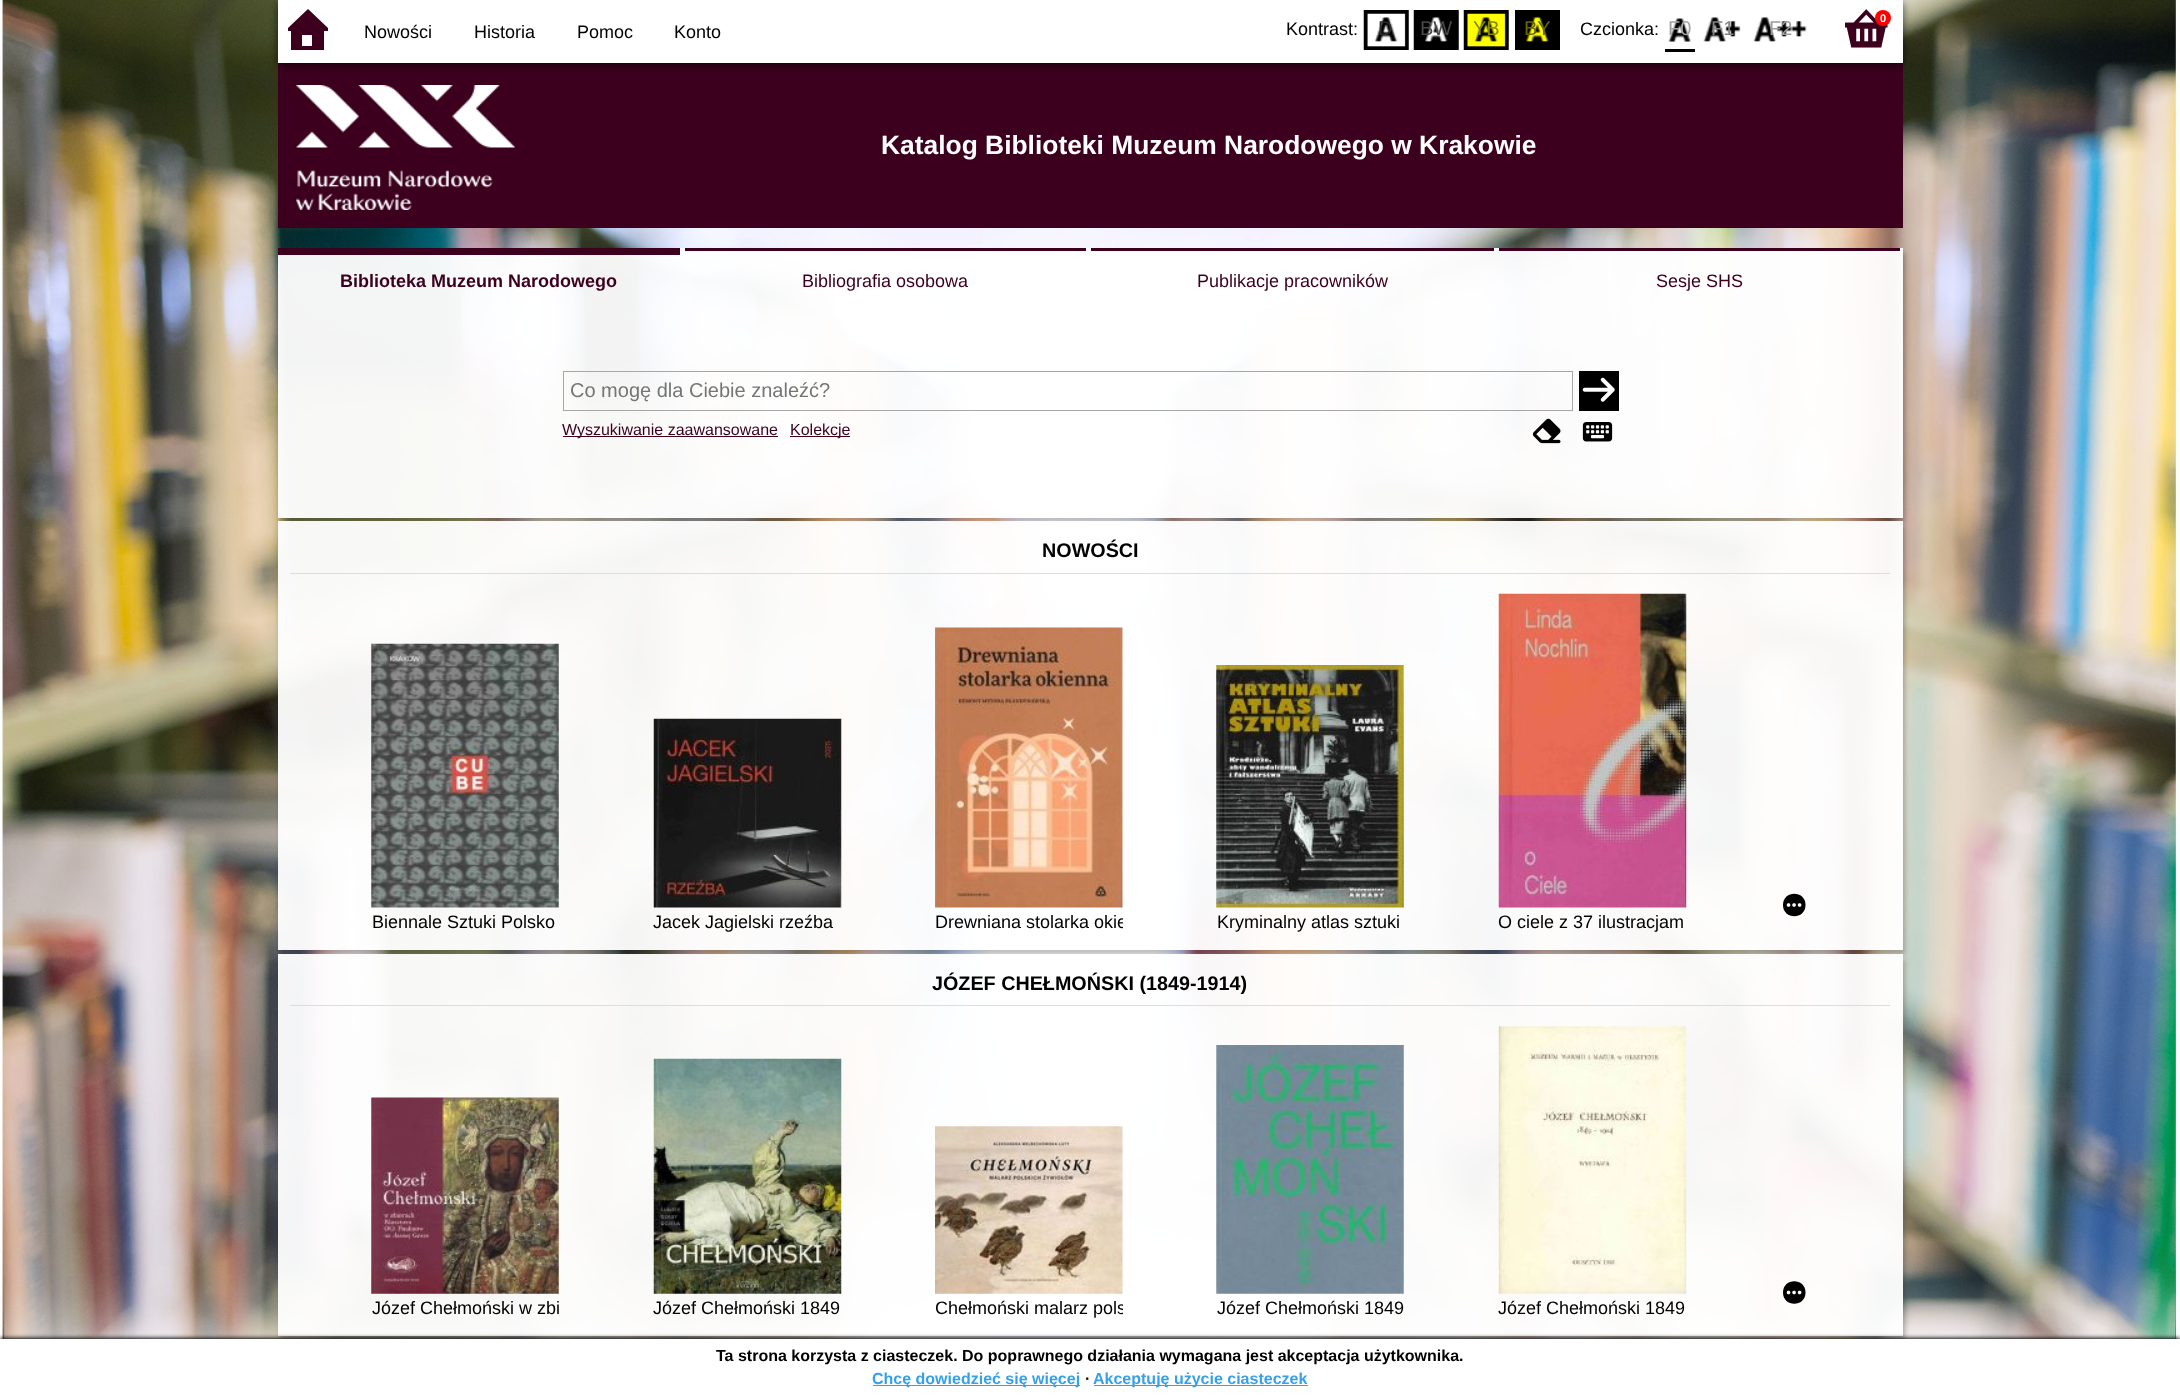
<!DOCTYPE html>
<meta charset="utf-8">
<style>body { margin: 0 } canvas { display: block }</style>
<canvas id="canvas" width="2180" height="1399"></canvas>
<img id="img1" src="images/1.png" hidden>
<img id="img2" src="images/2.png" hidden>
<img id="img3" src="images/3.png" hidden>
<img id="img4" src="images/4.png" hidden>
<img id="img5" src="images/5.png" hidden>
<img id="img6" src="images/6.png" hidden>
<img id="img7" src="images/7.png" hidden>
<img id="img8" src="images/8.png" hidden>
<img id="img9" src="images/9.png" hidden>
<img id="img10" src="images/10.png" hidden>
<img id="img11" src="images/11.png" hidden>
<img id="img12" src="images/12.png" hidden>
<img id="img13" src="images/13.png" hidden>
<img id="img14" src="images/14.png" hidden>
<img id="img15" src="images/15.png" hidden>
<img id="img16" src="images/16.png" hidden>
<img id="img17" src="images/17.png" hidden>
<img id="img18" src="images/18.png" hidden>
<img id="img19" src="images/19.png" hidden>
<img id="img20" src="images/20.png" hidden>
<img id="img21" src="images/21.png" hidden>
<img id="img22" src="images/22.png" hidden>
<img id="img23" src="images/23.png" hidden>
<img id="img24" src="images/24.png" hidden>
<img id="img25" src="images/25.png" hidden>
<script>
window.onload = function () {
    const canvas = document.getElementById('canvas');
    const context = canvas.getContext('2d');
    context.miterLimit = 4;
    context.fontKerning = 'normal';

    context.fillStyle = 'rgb(255, 255, 255)';
    context.fillRect(0, 0, 2180, 1399);
    context.drawImage(document.getElementById('img1'), 0, 0, 2180, 1339);
    context.fillStyle = 'rgb(60, 0, 30)';
    context.fillRect(278, 63, 1625, 165);
    context.fillStyle = 'rgba(0, 0, 0, 0.65)';
    context.filter = 'blur(4px)';
    context.beginPath();
    context.rect(278, 3, 1625, 62);
    context.fill();
    context.filter = 'none';
    context.fillStyle = 'rgb(255, 255, 255)';
    context.fillRect(278, 0, 1625, 63);
    context.fillStyle = 'rgb(60, 0, 30)';
    context.beginPath();
    context.moveTo(328, 31);
    context.lineTo(324, 31);
    context.lineTo(324, 50);
    context.lineTo(291, 50);
    context.lineTo(291, 31);
    context.lineTo(288, 31);
    context.lineTo(288, 28);
    context.lineTo(308, 9);
    context.lineTo(328, 28);
    context.closePath();
    context.moveTo(312, 46);
    context.lineTo(312, 35);
    context.lineTo(302, 35);
    context.lineTo(302, 46);
    context.closePath();
    context.fill();
    context.drawImage(document.getElementById('img2'), 1845, 9, 43, 39);
    context.fillStyle = 'rgb(255, 0, 0)';
    context.beginPath();
    context.arc(1883, 18, 8, 0, 2 * Math.PI);
    context.fill();
    context.drawImage(document.getElementById('img3'), 1363, 10, 46, 40);
    context.drawImage(document.getElementById('img4'), 1413, 10, 46, 40);
    context.drawImage(document.getElementById('img5'), 1463, 10, 46, 40);
    context.drawImage(document.getElementById('img6'), 1515, 10, 45, 40);
    context.drawImage(document.getElementById('img7'), 1668, 18, 24, 24);
    context.fillStyle = 'rgb(0, 0, 0)';
    context.fillRect(1665, 49, 30, 3);
    context.drawImage(document.getElementById('img8'), 1703, 17, 38, 25);
    context.drawImage(document.getElementById('img9'), 1753, 17, 54, 25);
    context.drawImage(document.getElementById('img10'), 296, 85, 219, 125);
    context.save();
    context.beginPath();
    context.moveTo(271, 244);
    context.lineTo(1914, 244);
    context.lineTo(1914, 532);
    context.lineTo(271, 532);
    context.closePath();
    context.moveTo(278, 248);
    context.lineTo(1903, 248);
    context.lineTo(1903, 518);
    context.lineTo(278, 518);
    context.closePath();
    context.clip('evenodd');
    context.fillStyle = 'rgba(0, 0, 0, 0.25)';
    context.filter = 'blur(2.5px)';
    context.beginPath();
    context.rect(280, 253, 1625, 270);
    context.fill();
    context.filter = 'none';
    context.restore();
    context.fillStyle = 'rgba(255, 255, 255, 0.95)';
    context.fillRect(278, 248, 1625, 270);
    context.fillStyle = 'rgb(60, 0, 30)';
    context.fillRect(278, 248, 402, 7);
    context.fillRect(685, 248, 401, 3);
    context.fillRect(1091, 248, 403, 3);
    context.fillRect(1499, 248, 401, 3);
    context.strokeStyle = 'rgb(167, 167, 167)';
    context.strokeRect(563.5, 371.5, 1009, 39);
    context.fillStyle = 'rgb(0, 0, 0)';
    context.fillRect(1579, 371, 40, 40);
    context.drawImage(document.getElementById('img11'), 1582, 377, 33, 25);
    context.fillStyle = 'rgb(60, 0, 30)';
    context.fillRect(563, 436, 215, 1);
    context.fillRect(790, 436, 60, 1);
    context.drawImage(document.getElementById('img12'), 1532, 418, 29, 26);
    context.drawImage(document.getElementById('img13'), 1582, 422, 31, 20);
    context.save();
    context.beginPath();
    context.moveTo(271, 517);
    context.lineTo(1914, 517);
    context.lineTo(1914, 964);
    context.lineTo(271, 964);
    context.closePath();
    context.moveTo(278, 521);
    context.lineTo(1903, 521);
    context.lineTo(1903, 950);
    context.lineTo(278, 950);
    context.closePath();
    context.clip('evenodd');
    context.fillStyle = 'rgba(0, 0, 0, 0.25)';
    context.filter = 'blur(2.5px)';
    context.beginPath();
    context.rect(280, 526, 1625, 429);
    context.fill();
    context.filter = 'none';
    context.restore();
    context.fillStyle = 'rgba(255, 255, 255, 0.95)';
    context.fillRect(278, 521, 1625, 429);
    context.fillStyle = 'rgb(221, 221, 221)';
    context.fillRect(290, 573, 1600, 1);
    context.fillStyle = 'rgb(0, 0, 0)';
    context.beginPath();
    context.moveTo(1783, 905);
    context.bezierCurveTo(1783, 890, 1805.5, 890, 1805.5, 905);
    context.bezierCurveTo(1805.5, 920, 1783, 920, 1783, 905);
    context.closePath();
    context.fill();
    context.drawImage(document.getElementById('img14'), 1786, 903, 16, 4);
    context.drawImage(document.getElementById('img15'), 371, 643, 188, 265);
    context.drawImage(document.getElementById('img16'), 653, 718, 189, 190);
    context.drawImage(document.getElementById('img17'), 935, 627, 188, 281);
    context.drawImage(document.getElementById('img18'), 1216, 665, 188, 243);
    context.drawImage(document.getElementById('img19'), 1498, 593, 189, 315);
    context.save();
    context.beginPath();
    context.moveTo(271, 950);
    context.lineTo(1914, 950);
    context.lineTo(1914, 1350);
    context.lineTo(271, 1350);
    context.closePath();
    context.moveTo(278, 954);
    context.lineTo(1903, 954);
    context.lineTo(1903, 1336);
    context.lineTo(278, 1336);
    context.closePath();
    context.clip('evenodd');
    context.fillStyle = 'rgba(0, 0, 0, 0.25)';
    context.filter = 'blur(2.5px)';
    context.beginPath();
    context.rect(280, 959, 1625, 382);
    context.fill();
    context.filter = 'none';
    context.restore();
    context.fillStyle = 'rgba(255, 255, 255, 0.95)';
    context.fillRect(278, 954, 1625, 382);
    context.fillStyle = 'rgb(221, 221, 221)';
    context.fillRect(290, 1005, 1600, 1);
    context.fillStyle = 'rgb(0, 0, 0)';
    context.beginPath();
    context.moveTo(1783, 1292.5);
    context.bezierCurveTo(1783, 1277.5, 1805.5, 1277.5, 1805.5, 1292.5);
    context.bezierCurveTo(1805.5, 1307.5, 1783, 1307.5, 1783, 1292.5);
    context.closePath();
    context.fill();
    context.drawImage(document.getElementById('img20'), 1786, 1290, 16, 5);
    context.drawImage(document.getElementById('img21'), 371, 1097, 188, 197);
    context.drawImage(document.getElementById('img22'), 653, 1058, 189, 236);
    context.drawImage(document.getElementById('img23'), 935, 1126, 188, 168);
    context.drawImage(document.getElementById('img24'), 1216, 1045, 188, 249);
    context.drawImage(document.getElementById('img25'), 1498, 1026, 189, 268);
    context.filter = 'blur(2px)';
    context.beginPath();
    context.rect(0, 1338, 2180, 61);
    context.fill();
    context.filter = 'none';
    context.fillStyle = 'rgb(255, 255, 255)';
    context.fillRect(0, 1339, 2180, 60);
    context.fillStyle = 'rgb(54, 160, 236)';
    context.fillRect(873, 1385, 207, 1);
    context.fillRect(1094, 1385, 214, 1);
    context.font = '18px Liberation Sans';
    context.fillStyle = 'rgb(0, 0, 0)';
    context.fillText('Nowości', 364, 38);
    context.fillText('Historia', 474, 38);
    context.fillText('Pomoc', 577, 38);
    context.fillText('Konto', 674, 38);
    context.font = 'bold 11px Liberation Sans';
    context.fillStyle = 'rgb(255, 255, 255)';
    context.fillText('0', 1880, 22);
    context.font = '18px Liberation Sans';
    context.fillStyle = 'rgb(0, 0, 0)';
    context.fillText('Kontrast:', 1286, 35);
    context.font = '20px Liberation Sans';
    context.fillStyle = 'rgb(44, 44, 44)';
    context.fillText('D', 1378, 35);
    context.fillStyle = 'rgb(72, 72, 72)';
    context.fillText('BW', 1420, 35);
    context.fillStyle = 'rgb(136, 136, 0)';
    context.fillText('YB', 1473, 35);
    context.fillStyle = 'rgb(102, 102, 0)';
    context.fillText('BY', 1524, 35);
    context.font = '18px Liberation Sans';
    context.fillStyle = 'rgb(0, 0, 0)';
    context.fillText('Czcionka:', 1580, 35);
    context.font = '20px Liberation Sans';
    context.fillStyle = 'rgb(164, 164, 164)';
    context.fillText('F0', 1668, 35);
    context.fillStyle = 'rgb(132, 132, 132)';
    context.fillText('F1', 1711, 35);
    context.fillStyle = 'rgb(158, 158, 158)';
    context.fillText('F2', 1769, 35);
    context.font = 'bold 26.4px Liberation Sans';
    context.fillStyle = 'rgb(255, 255, 255)';
    context.fillText('Katalog Biblioteki Muzeum Narodowego w Krakowie', 881, 154);
    context.font = 'bold 18px Liberation Sans';
    context.fillStyle = 'rgb(60, 0, 30)';
    context.fillText('Biblioteka Muzeum Narodowego', 340, 287);
    context.font = '18px Liberation Sans';
    context.fillText('Bibliografia osobowa', 802, 287);
    context.fillText('Publikacje pracowników', 1197, 287);
    context.fillText('Sesje SHS', 1656, 287);
    context.font = '20px Liberation Sans';
    context.fillStyle = 'rgb(117, 117, 117)';
    context.fillText('Co mogę dla Ciebie znaleźć?', 570, 397);
    context.font = '16px Liberation Sans';
    context.fillStyle = 'rgb(60, 0, 30)';
    context.fillText('Wyszukiwanie zaawansowane', 562, 435);
    context.fillText('Kolekcje', 790, 435);
    context.font = 'bold 19.75px Liberation Sans';
    context.fillStyle = 'rgb(0, 0, 0)';
    context.fillText('NOWOŚCI', 1042, 557);
    context.font = '18px Liberation Sans';
    context.fillText('Biennale Sztuki Polsko', 372, 928);
    context.fillText('Jacek Jagielski rzeźba', 653, 928);
    context.save();
    context.beginPath();
    context.rect(935, 911, 188, 27);
    context.clip();
    context.fillText('Drewniana stolarka okie', 935, 928);
    context.restore();
    context.fillText('Kryminalny atlas sztuki', 1217, 928);
    context.fillText('O ciele z 37 ilustracjam', 1498, 928);
    context.font = 'bold 19.75px Liberation Sans';
    context.fillText('JÓZEF CHEŁMOŃSKI (1849-1914)', 932, 990);
    context.font = '18px Liberation Sans';
    context.fillText('Józef Chełmoński w zbi', 372, 1314);
    context.fillText('Józef Chełmoński 1849', 653, 1314);
    context.save();
    context.beginPath();
    context.rect(935, 1298, 188, 26);
    context.clip();
    context.fillText('Chełmoński malarz pols', 935, 1314);
    context.restore();
    context.fillText('Józef Chełmoński 1849', 1217, 1314);
    context.fillText('Józef Chełmoński 1849', 1498, 1314);
    context.font = 'bold 16px Liberation Sans';
    context.fillText('Ta strona korzysta z ciasteczek. Do poprawnego działania wymagana jest akceptacja użytkownika.', 716, 1361);
    context.fillStyle = 'rgb(54, 160, 236)';
    context.fillText('Chcę dowiedzieć się więcej', 872, 1384);
    context.fillStyle = 'rgb(0, 0, 0)';
    context.fillText('∙', 1085, 1384);
    context.fillStyle = 'rgb(54, 160, 236)';
    context.fillText('Akceptuję użycie ciasteczek', 1093, 1384);
};
</script>
